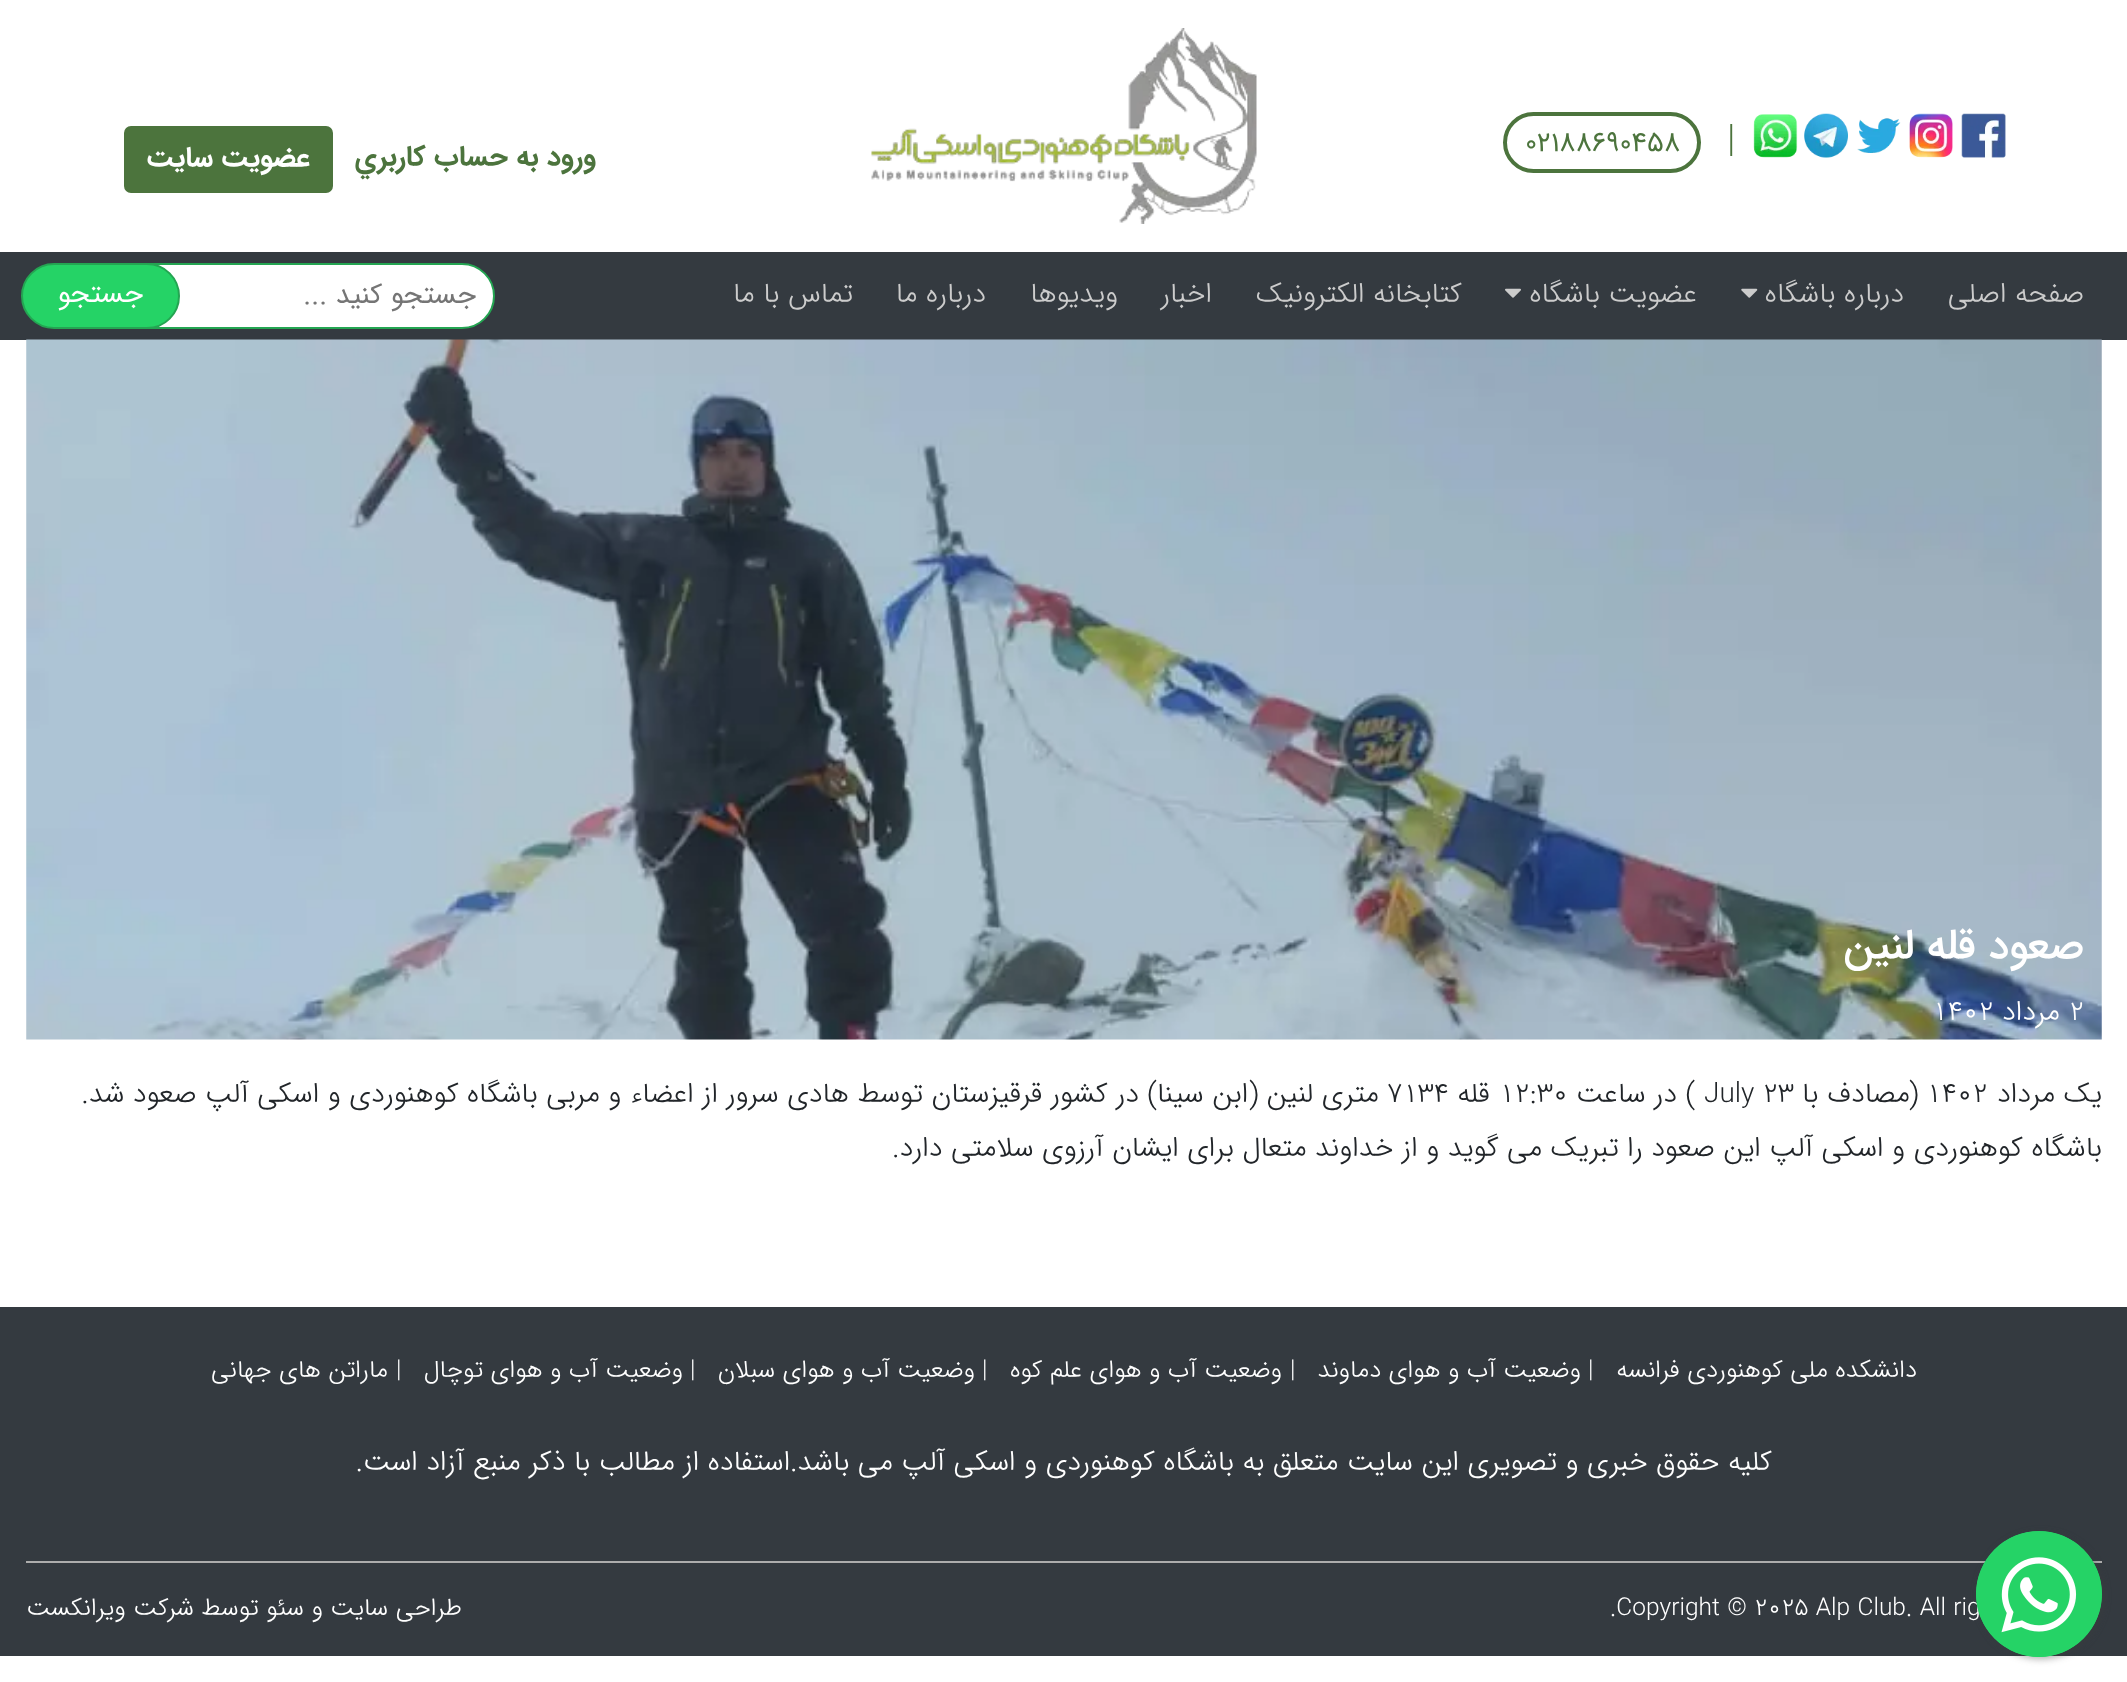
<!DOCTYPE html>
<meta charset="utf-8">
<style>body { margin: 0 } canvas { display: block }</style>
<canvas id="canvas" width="2127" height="1682"></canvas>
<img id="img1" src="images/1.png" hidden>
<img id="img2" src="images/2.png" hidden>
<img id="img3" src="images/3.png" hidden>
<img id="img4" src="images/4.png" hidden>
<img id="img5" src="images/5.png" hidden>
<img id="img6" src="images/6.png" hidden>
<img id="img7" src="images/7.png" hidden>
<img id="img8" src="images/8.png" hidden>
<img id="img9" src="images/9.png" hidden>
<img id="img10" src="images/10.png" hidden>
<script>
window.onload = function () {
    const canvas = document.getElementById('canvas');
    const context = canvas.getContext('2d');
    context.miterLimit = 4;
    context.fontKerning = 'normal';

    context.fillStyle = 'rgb(255, 255, 255)';
    context.fillRect(0, 0, 2127, 1682);
    context.drawImage(document.getElementById('img1'), 1961, 113, 45, 45);
    context.drawImage(document.getElementById('img2'), 1909, 113, 44, 45);
    context.drawImage(document.getElementById('img3'), 1857, 118, 44, 35);
    context.drawImage(document.getElementById('img4'), 1804, 113, 44, 45);
    context.drawImage(document.getElementById('img5'), 1753, 114, 45, 44);
    context.beginPath();
    context.roundRect(1505, 114, 194, 57, 28.5);
    context.strokeStyle = 'rgb(76, 116, 61)';
    context.lineWidth = 4;
    context.stroke();
    context.drawImage(document.getElementById('img6'), 871, 28, 386, 196);
    context.fillStyle = 'rgb(76, 116, 61)';
    context.beginPath();
    context.roundRect(125, 127, 207, 65, 6);
    context.fill();
    context.lineWidth = 2;
    context.stroke();
    context.fillStyle = 'rgb(52, 58, 64)';
    context.fillRect(0, 252, 2127, 88);
    context.drawImage(document.getElementById('img7'), 1741, 288, 17, 10);
    context.drawImage(document.getElementById('img8'), 1505, 288, 16, 10);
    context.fillStyle = 'rgb(255, 255, 255)';
    context.beginPath();
    context.roundRect(111, 264, 383, 64, 32);
    context.fill();
    context.strokeStyle = 'rgb(36, 165, 82)';
    context.stroke();
    context.fillStyle = 'rgb(37, 211, 102)';
    context.beginPath();
    context.roundRect(22, 264, 157, 64, 32);
    context.fill();
    context.stroke();
    context.drawImage(document.getElementById('img9'), 26, 339, 2076, 701);
    context.fillStyle = 'rgb(52, 58, 64)';
    context.fillRect(0, 1307, 2127, 349);
    context.fillStyle = 'rgb(173, 173, 173)';
    context.fillRect(26, 1561, 2076, 2);
    context.fillStyle = 'rgba(60, 60, 60, 0.4)';
    context.filter = 'blur(3.5px)';
    context.beginPath();
    context.roundRect(1978, 1533, 126, 126, 63);
    context.fill();
    context.filter = 'none';
    context.font = '300 38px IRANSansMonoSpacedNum';
    context.fillStyle = 'rgb(76, 116, 61)';
    context.fillText('|', 1727, 151);
    context.font = '28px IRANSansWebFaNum';
    context.fillText('02188690458', 1525, 151);
    context.direction = 'rtl';
    context.font = 'bold 28px IRANSansWebFaNum';
    context.fillText('ورود به حساب كاربري', 596, 165);
    context.fillStyle = 'rgb(255, 255, 255)';
    context.fillText('عضويت سایت', 310, 166);
    context.font = '300 28px IRANSansMonoSpacedNum';
    context.fillStyle = 'rgb(204, 204, 204)';
    context.fillText('صفحه اصلی', 2084, 302);
    context.fillText('درباره باشگاه', 1904, 302);
    context.fillText('عضویت باشگاه', 1697, 302);
    context.fillText('کتابخانه الکترونیک', 1462, 302);
    context.fillText('اخبار', 1212, 302);
    context.fillText('ویدیوها', 1118, 302);
    context.fillText('درباره ما', 986, 302);
    context.fillText('تماس با ما', 853, 302);
    context.font = '28px IRANSansWebFaNum';
    context.fillStyle = 'rgb(117, 117, 117)';
    context.fillText('جستجو کنید ...', 476, 303);
    context.fillStyle = 'rgb(255, 255, 255)';
    context.fillText('جستجو', 143, 302);
    context.font = '500 42px IRANSansWebFaNum';
    context.fillText('صعود قله لنین', 2084, 958);
    context.direction = 'ltr';
    context.font = '300 28px IRANSansMonoSpacedNum';
    context.fillText('2', 2069, 1020);
    context.direction = 'rtl';
    context.fillText('مرداد', 2060, 1020);
    context.direction = 'ltr';
    context.fillText('1402', 1932, 1020);
    context.direction = 'rtl';
    context.fillStyle = 'rgb(33, 37, 41)';
    context.fillText('یک مرداد', 2102, 1102);
    context.direction = 'ltr';
    context.fillText('۱۴۰۲', 1926, 1102);
    context.direction = 'rtl';
    context.fillText('(مصادف با', 1918, 1102);
    context.direction = 'ltr';
    context.fillText('July 23', 1704, 1102);
    context.direction = 'rtl';
    context.fillText(') در ساعت', 1695, 1102);
    context.direction = 'ltr';
    context.fillText('12:30', 1499, 1102);
    context.direction = 'rtl';
    context.fillText('قله', 1490, 1102);
    context.direction = 'ltr';
    context.fillText('۷۱۳۴', 1387, 1102);
    context.direction = 'rtl';
    context.fillText('متری لنین (ابن سینا) در کشور قرقیزستان توسط هادی سرور از اعضاء و مربی باشگاه کوهنوردی و اسکی آلپ صعود شد.', 1379, 1102);
    context.fillText('باشگاه کوهنوردی و اسکی آلپ این صعود را تبریک می گوید و از خداوند متعال برای ایشان آرزوی سلامتی دارد.', 2102, 1156);
    context.font = '300 24.5px IRANSansMonoSpacedNum';
    context.fillStyle = 'rgb(255, 255, 255)';
    context.fillText('دانشکده ملی کوهنوردی فرانسه', 1917, 1377);
    context.direction = 'ltr';
    context.fillText('|', 1588, 1377);
    context.direction = 'rtl';
    context.fillText('وضعیت آب و هوای دماوند', 1581, 1377);
    context.direction = 'ltr';
    context.fillText('|', 1290, 1377);
    context.direction = 'rtl';
    context.fillText('وضعیت آب و هوای علم کوه', 1282, 1377);
    context.direction = 'ltr';
    context.fillText('|', 982, 1377);
    context.direction = 'rtl';
    context.fillText('وضعیت آب و هوای سبلان', 975, 1377);
    context.direction = 'ltr';
    context.fillText('|', 690, 1377);
    context.direction = 'rtl';
    context.fillText('وضعیت آب و هوای توچال', 683, 1377);
    context.direction = 'ltr';
    context.fillText('|', 396, 1377);
    context.direction = 'rtl';
    context.fillText('ماراتن های جهانی', 388, 1377);
    context.font = '300 28px IRANSansMonoSpacedNum';
    context.fillText('کلیه حقوق خبری و تصویری این سایت متعلق به باشگاه کوهنوردی و اسکی آلپ می باشد.استفاده از مطالب با ذکر منبع آزاد است.', 1772, 1470);
    context.direction = 'ltr';
    context.font = '300 24.5px IRANSansMonoSpacedNum';
    context.fillText('.Copyright © 2025 Alp Club. All rig', 1610, 1615);
    context.direction = 'rtl';
    context.fillText('طراحی سایت و سئو توسط', 462, 1615);
    context.fillText('شرکت ویرانکست', 194, 1615);
    context.fillStyle = 'rgb(37, 211, 102)';
    context.beginPath();
    context.arc(2039, 1594, 63, 0, 2 * Math.PI);
    context.fill();
    context.drawImage(document.getElementById('img10'), 1976, 1531, 126, 126);
};
</script>
